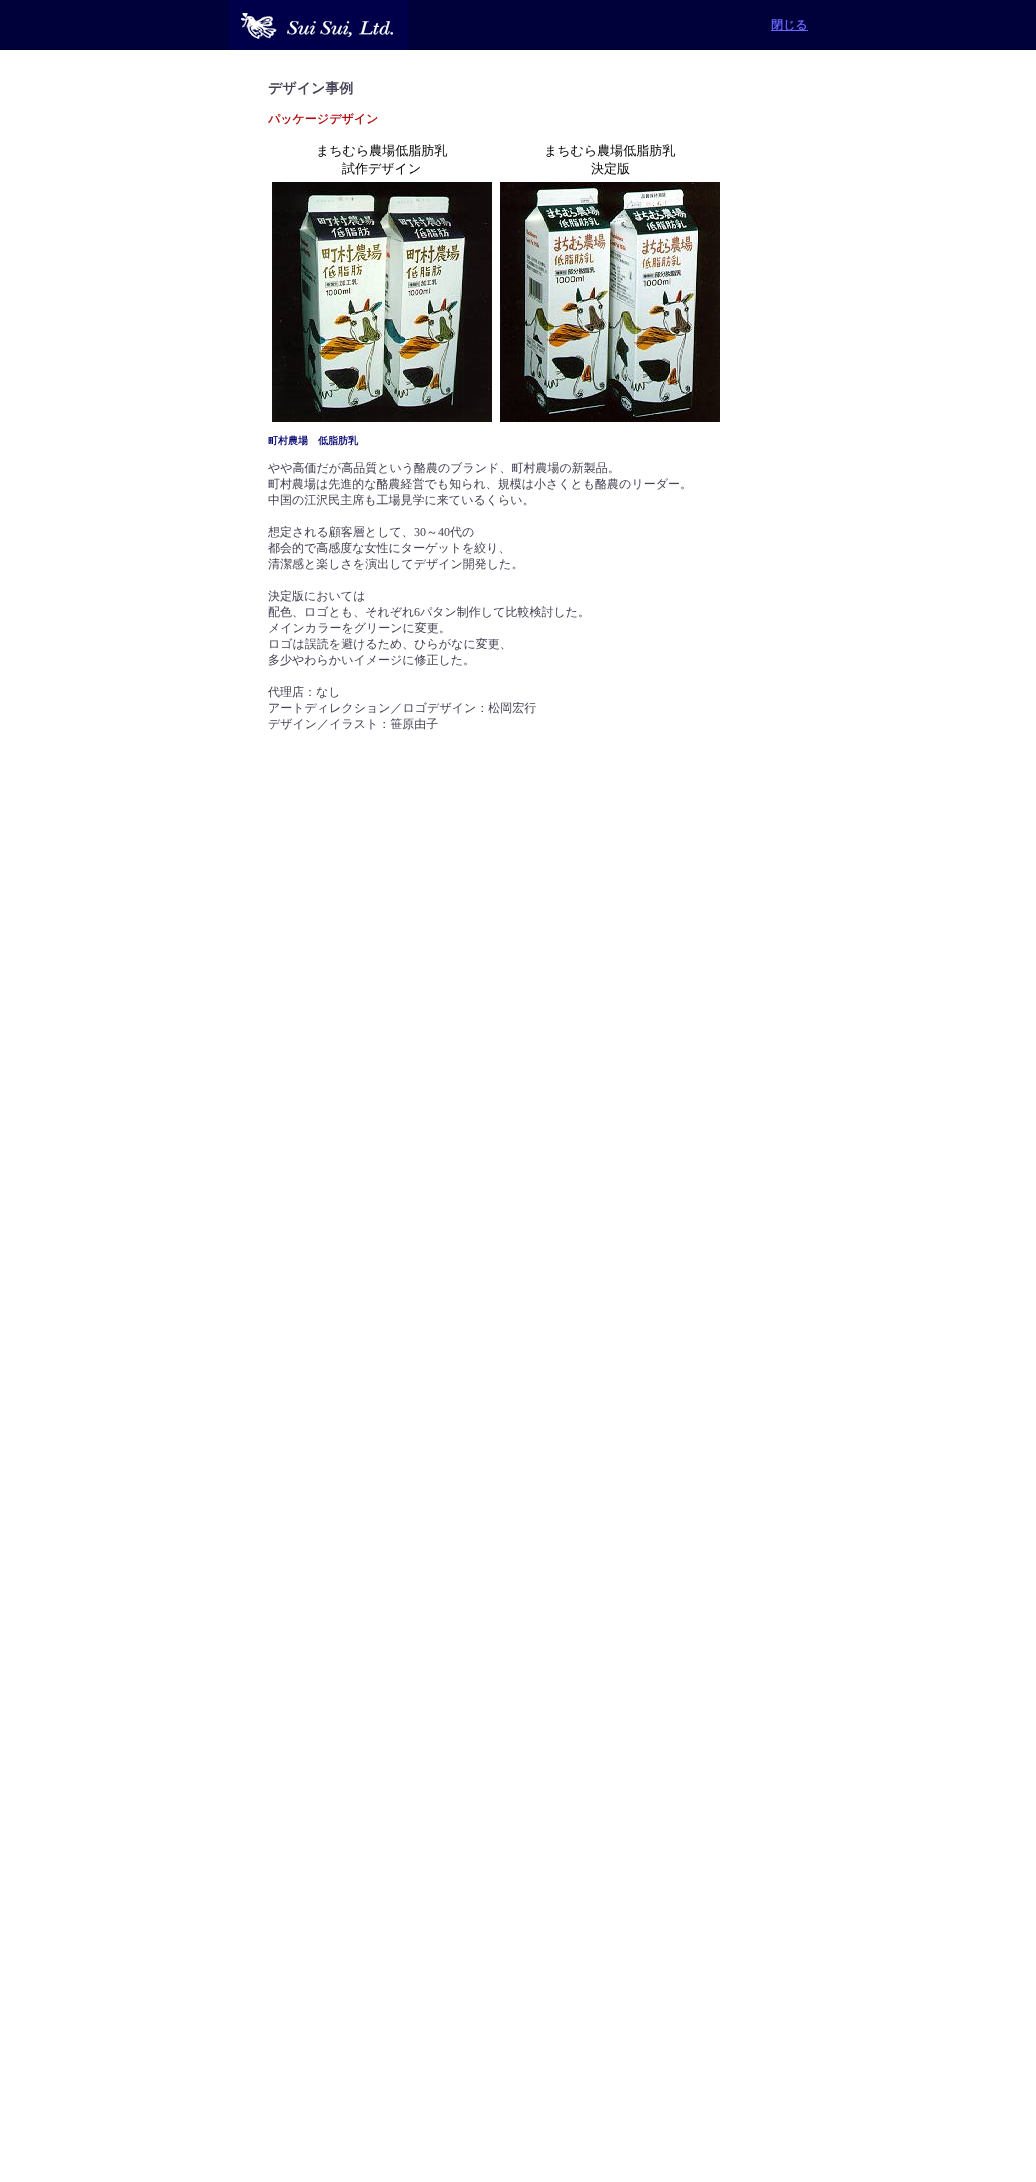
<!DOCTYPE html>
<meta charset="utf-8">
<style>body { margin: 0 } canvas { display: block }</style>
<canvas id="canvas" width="1036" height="2182"></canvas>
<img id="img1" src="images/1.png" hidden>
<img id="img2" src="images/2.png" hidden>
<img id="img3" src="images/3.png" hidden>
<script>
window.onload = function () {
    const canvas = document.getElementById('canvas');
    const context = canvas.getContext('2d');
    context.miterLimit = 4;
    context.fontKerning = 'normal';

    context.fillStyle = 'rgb(255, 255, 255)';
    context.fillRect(0, 0, 1036, 2182);
    context.fillStyle = 'rgb(0, 1, 58)';
    context.fillRect(0, 0, 1036, 50);
    context.drawImage(document.getElementById('img1'), 228, 0, 180, 50);
    context.fillStyle = 'rgb(102, 102, 255)';
    context.fillRect(771, 30, 37, 1);
    context.drawImage(document.getElementById('img2'), 272, 182, 220, 240);
    context.drawImage(document.getElementById('img3'), 500, 182, 220, 240);
    context.font = 'bold 12px WenQuanYi Zen Hei';
    context.fillText('閉じる', 771, 29);
    context.font = 'bold 14px WenQuanYi Zen Hei';
    context.fillStyle = 'rgb(68, 66, 84)';
    context.fillText('デザイン事例', 268, 93);
    context.font = 'bold 12px WenQuanYi Zen Hei';
    context.fillStyle = 'rgb(176, 14, 14)';
    context.fillText('パッケージデザイン', 268, 123);
    context.font = '500 13px WenQuanYi Zen Hei';
    context.fillStyle = 'rgb(0, 0, 0)';
    context.fillText('まちむら農場低脂肪乳', 316, 155);
    context.fillText('試作デザイン', 342, 173);
    context.fillText('まちむら農場低脂肪乳', 544, 155);
    context.fillText('決定版', 591, 173);
    context.font = 'bold 10px WenQuanYi Zen Hei';
    context.fillStyle = 'rgb(0, 0, 112)';
    context.fillText('町村農場　低脂肪乳', 268, 444);
    context.font = '500 12px WenQuanYi Zen Hei';
    context.fillStyle = 'rgb(68, 66, 84)';
    context.fillText('やや高価だが高品質という酪農のブランド、町村農場の新製品。', 268, 472);
    context.fillText('町村農場は先進的な酪農経営でも知られ、規模は小さくとも酪農のリーダー。', 268, 488);
    context.fillText('中国の江沢民主席も工場見学に来ているくらい。', 268, 504);
    context.fillText('想定される顧客層として、', 268, 536);
    context.font = '12px Liberation Serif';
    context.fillText('30', 414, 536);
    context.font = '500 12px WenQuanYi Zen Hei';
    context.fillText('～', 426, 536);
    context.font = '12px Liberation Serif';
    context.fillText('40', 438, 536);
    context.font = '500 12px WenQuanYi Zen Hei';
    context.fillText('代の', 450, 536);
    context.fillText('都会的で高感度な女性にターゲットを絞り、', 268, 552);
    context.fillText('清潔感と楽しさを演出してデザイン開発した。', 268, 568);
    context.fillText('決定版においては', 268, 600);
    context.fillText('配色、ロゴとも、それぞれ', 268, 616);
    context.font = '12px Liberation Serif';
    context.fillText('6', 414, 616);
    context.font = '500 12px WenQuanYi Zen Hei';
    context.fillText('パタン制作して比較検討した。', 420, 616);
    context.fillText('メインカラーをグリーンに変更。', 268, 632);
    context.fillText('ロゴは誤読を避けるため、ひらがなに変更、', 268, 648);
    context.fillText('多少やわらかいイメージに修正した。', 268, 664);
    context.fillText('代理店：なし', 268, 696);
    context.fillText('アートディレクション／ロゴデザイン：松岡宏行', 268, 712);
    context.fillText('デザイン／イラスト：笹原由子', 268, 728);
};
</script>
